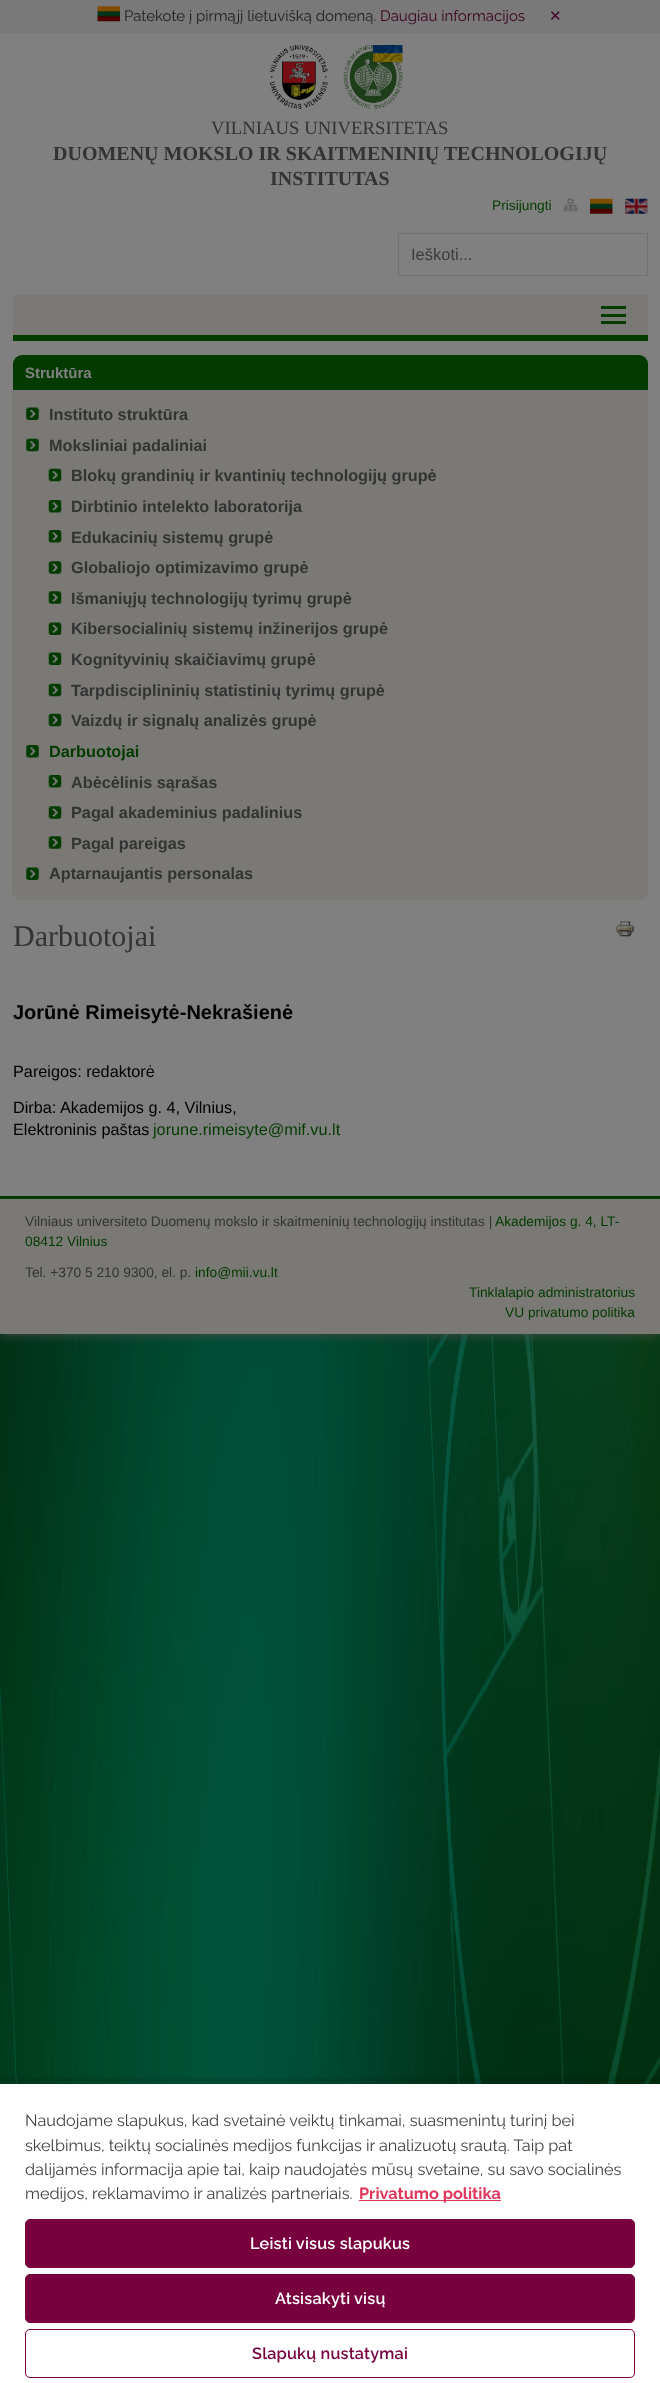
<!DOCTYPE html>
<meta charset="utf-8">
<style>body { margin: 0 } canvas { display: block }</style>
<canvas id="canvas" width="660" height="2383"></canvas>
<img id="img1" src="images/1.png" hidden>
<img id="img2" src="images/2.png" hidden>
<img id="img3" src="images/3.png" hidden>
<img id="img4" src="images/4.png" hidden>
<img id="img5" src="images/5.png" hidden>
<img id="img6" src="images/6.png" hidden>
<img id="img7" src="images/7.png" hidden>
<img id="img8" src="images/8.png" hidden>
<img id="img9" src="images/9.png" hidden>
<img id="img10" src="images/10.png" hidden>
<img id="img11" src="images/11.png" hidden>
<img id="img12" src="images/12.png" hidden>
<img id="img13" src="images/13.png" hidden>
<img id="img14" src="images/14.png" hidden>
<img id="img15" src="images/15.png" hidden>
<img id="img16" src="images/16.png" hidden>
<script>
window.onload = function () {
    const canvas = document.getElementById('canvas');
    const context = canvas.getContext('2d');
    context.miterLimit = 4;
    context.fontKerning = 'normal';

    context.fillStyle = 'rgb(255, 255, 255)';
    context.fillRect(0, 0, 660, 2383);
    context.drawImage(document.getElementById('img1'), 0, 1334, 660, 750);
    context.fillStyle = 'rgb(77, 77, 77)';
    context.filter = 'blur(6px)';
    context.beginPath();
    context.rect(0, 33, 660, 1301);
    context.fill();
    context.filter = 'none';
    context.fillStyle = 'rgb(121, 121, 121)';
    context.fillRect(0, 0, 660, 33);
    context.drawImage(document.getElementById('img2'), 97, 6, 23, 16);
    context.fillStyle = 'rgb(128, 128, 128)';
    context.fillRect(0, 33, 660, 1163);
    context.drawImage(document.getElementById('img3'), 270, 45, 58, 64);
    context.drawImage(document.getElementById('img4'), 343, 45, 60, 64);
    context.drawImage(document.getElementById('img5'), 563, 198, 15, 14);
    context.drawImage(document.getElementById('img6'), 590, 198, 23, 16);
    context.drawImage(document.getElementById('img7'), 625, 198, 23, 16);
    context.strokeStyle = 'rgb(114, 113, 109)';
    context.strokeRect(398.5, 233.5, 249, 42);
    context.fillStyle = 'rgb(123, 121, 117)';
    context.fillRect(13, 295, 635, 40);
    context.fillStyle = 'rgb(3, 58, 0)';
    context.fillRect(13, 335, 635, 6);
    context.fillRect(601, 306, 25, 3);
    context.fillRect(601, 314, 25, 3);
    context.fillRect(601, 321, 25, 3);
    context.beginPath();
    context.roundRect(13, 355, 635, 35, [9, 9, 0, 0]);
    context.fill();
    context.fillStyle = 'rgb(123, 121, 117)';
    context.beginPath();
    context.roundRect(13, 390, 635, 510, [0, 0, 9, 9]);
    context.fill();
    context.beginPath();
    context.moveTo(12, 390);
    context.lineTo(648, 390);
    context.lineTo(648, 891);
    context.bezierCurveTo(648, 896, 644, 900, 639, 900);
    context.lineTo(21, 900);
    context.bezierCurveTo(16, 900, 12, 896, 12, 891);
    context.closePath();
    context.moveTo(14, 390);
    context.lineTo(646, 390);
    context.lineTo(646, 891);
    context.bezierCurveTo(646, 895, 643, 899, 639, 899);
    context.lineTo(21, 899);
    context.bezierCurveTo(17, 899, 14, 895, 14, 891);
    context.closePath();
    context.fill('evenodd');
    context.drawImage(document.getElementById('img8'), 26, 407, 13, 13);
    context.drawImage(document.getElementById('img9'), 26, 438, 13, 14);
    context.drawImage(document.getElementById('img10'), 48, 468, 14, 14);
    context.drawImage(document.getElementById('img11'), 48, 500, 14, 13);
    context.drawImage(document.getElementById('img11'), 48, 530, 14, 13);
    context.drawImage(document.getElementById('img12'), 48, 561, 14, 13);
    context.drawImage(document.getElementById('img12'), 48, 591, 14, 13);
    context.drawImage(document.getElementById('img13'), 48, 622, 14, 13);
    context.drawImage(document.getElementById('img13'), 48, 652, 14, 13);
    context.drawImage(document.getElementById('img10'), 48, 683, 14, 14);
    context.drawImage(document.getElementById('img10'), 48, 713, 14, 14);
    context.drawImage(document.getElementById('img14'), 26, 745, 13, 13);
    context.drawImage(document.getElementById('img15'), 48, 775, 14, 13);
    context.drawImage(document.getElementById('img12'), 48, 806, 14, 13);
    context.drawImage(document.getElementById('img12'), 48, 836, 14, 13);
    context.drawImage(document.getElementById('img8'), 26, 867, 13, 13);
    context.drawImage(document.getElementById('img16'), 616, 921, 18, 16);
    context.fillRect(0, 1199, 660, 135);
    context.fillStyle = 'rgb(3, 58, 0)';
    context.fillRect(0, 1196, 660, 3);
    context.save();
    context.beginPath();
    context.moveTo(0, 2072);
    context.lineTo(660, 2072);
    context.lineTo(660, 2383);
    context.lineTo(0, 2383);
    context.closePath();
    context.moveTo(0, 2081);
    context.lineTo(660, 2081);
    context.lineTo(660, 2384);
    context.lineTo(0, 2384);
    context.closePath();
    context.clip('evenodd');
    context.fillStyle = 'rgba(0, 0, 0, 0.35)';
    context.filter = 'blur(2.5px)';
    context.beginPath();
    context.rect(0, 2081, 660, 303);
    context.fill();
    context.filter = 'none';
    context.restore();
    context.fillStyle = 'rgba(0, 0, 0, 0.2)';
    context.filter = 'blur(2.5px)';
    context.beginPath();
    context.rect(0, 2084, 660, 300);
    context.fill();
    context.filter = 'none';
    context.fillStyle = 'rgb(255, 255, 255)';
    context.fillRect(0, 2084, 660, 299);
    context.fillStyle = 'rgb(225, 53, 89)';
    context.fillRect(359, 2200, 142, 1);
    context.fillStyle = 'rgb(120, 0, 63)';
    context.beginPath();
    context.roundRect(25.5, 2219.5, 609, 48, 4.5);
    context.fill();
    context.strokeStyle = 'rgb(120, 0, 63)';
    context.stroke();
    context.beginPath();
    context.roundRect(25.5, 2274.5, 609, 48, 4.5);
    context.fill();
    context.stroke();
    context.beginPath();
    context.roundRect(25.5, 2329.5, 609, 48, 4.5);
    context.stroke();
    context.font = '15px Raleway';
    context.fillStyle = 'rgb(30, 30, 30)';
    context.fillText('Patekote į pirmąjį lietuvišką domeną.', 124, 21);
    context.fillStyle = 'rgb(60, 0, 32)';
    context.fillText('Daugiau informacijos', 380, 21);
    context.font = '15px DejaVu Sans';
    context.fillText('✕', 549, 21);
    context.font = '18.75px Liberation Serif';
    context.fillStyle = 'rgb(51, 51, 51)';
    context.fillText('VILNIAUS UNIVERSITETAS', 211, 134);
    context.font = 'bold 20px Liberation Serif';
    context.fillText('DUOMENŲ MOKSLO IR SKAITMENINIŲ TECHNOLOGIJŲ', 53, 160);
    context.fillText('INSTITUTAS', 270, 185);
    context.font = '13.75px Liberation Sans';
    context.fillStyle = 'rgb(3, 58, 0)';
    context.fillText('Prisijungti', 492, 210);
    context.font = '16.5px Liberation Sans';
    context.fillStyle = 'rgb(59, 59, 59)';
    context.fillText('Ieškoti...', 411, 260);
    context.font = 'bold 15px Liberation Sans';
    context.fillStyle = 'rgb(128, 128, 128)';
    context.fillText('Struktūra', 25, 378);
    context.font = 'bold 16.25px Liberation Sans';
    context.fillStyle = 'rgb(51, 51, 51)';
    context.fillText('Instituto struktūra', 49, 420);
    context.fillText('Moksliniai padaliniai', 49, 451);
    context.fillText('Blokų grandinių ir kvantinių technologijų grupė', 71, 481);
    context.fillText('Dirbtinio intelekto laboratorija', 71, 512);
    context.fillText('Edukacinių sistemų grupė', 71, 543);
    context.fillText('Globaliojo optimizavimo grupė', 71, 573);
    context.fillText('Išmaniųjų technologijų tyrimų grupė', 71, 604);
    context.fillText('Kibersocialinių sistemų inžinerijos grupė', 71, 634);
    context.fillText('Kognityvinių skaičiavimų grupė', 71, 665);
    context.fillText('Tarpdisciplininių statistinių tyrimų grupė', 71, 696);
    context.fillText('Vaizdų ir signalų analizės grupė', 71, 726);
    context.fillStyle = 'rgb(3, 58, 0)';
    context.fillText('Darbuotojai', 49, 757);
    context.fillStyle = 'rgb(51, 51, 51)';
    context.fillText('Abėcėlinis sąrašas', 71, 788);
    context.fillText('Pagal akademinius padalinius', 71, 818);
    context.fillText('Pagal pareigas', 71, 849);
    context.fillText('Aptarnaujantis personalas', 49, 879);
    context.font = '30px Liberation Serif';
    context.fillText('Darbuotojai', 13, 946);
    context.font = 'bold 20px Liberation Sans';
    context.fillStyle = 'rgb(0, 0, 0)';
    context.fillText('Jorūnė Rimeisytė-Nekrašienė', 13, 1019);
    context.font = '16.25px Liberation Sans';
    context.fillText('Pareigos: redaktorė', 13, 1077);
    context.fillText('Dirba: Akademijos g. 4, Vilnius,', 13, 1113);
    context.fillText('Elektroninis paštas', 13, 1135);
    context.fillStyle = 'rgb(3, 58, 0)';
    context.fillText('jorune.rimeisyte@mif.vu.lt', 153, 1135);
    context.font = '13.75px Liberation Sans';
    context.fillStyle = 'rgb(51, 51, 51)';
    context.fillText('Vilniaus universiteto Duomenų mokslo ir skaitmeninių technologijų institutas |', 25, 1226);
    context.fillStyle = 'rgb(3, 58, 0)';
    context.fillText('Akademijos g. 4, LT-', 495, 1226);
    context.fillText('08412 Vilnius', 25, 1246);
    context.fillStyle = 'rgb(51, 51, 51)';
    context.fillText('Tel. +370 5 210 9300, el. p.', 25, 1277);
    context.fillStyle = 'rgb(3, 58, 0)';
    context.fillText('info@mii.vu.lt', 195, 1277);
    context.fillText('Tinklalapio administratorius', 469, 1297);
    context.fillText('VU privatumo politika', 505, 1317);
    context.font = '16.25px Raleway';
    context.fillStyle = 'rgb(65, 65, 65)';
    context.fillText('Naudojame slapukus, kad svetainė veiktų tinkamai, suasmenintų turinį bei', 25, 2126);
    context.fillText('skelbimus, teiktų socialinės medijos funkcijas ir analizuotų srautą. Taip pat', 25, 2151);
    context.fillText('dalijamės informacija apie tai, kaip naudojatės mūsų svetaine, su savo socialinės', 25, 2175);
    context.fillText('medijos, reklamavimo ir analizės partneriais.', 25, 2199);
    context.font = 'bold 16.25px Raleway';
    context.fillStyle = 'rgb(225, 53, 89)';
    context.fillText('Privatumo politika', 359, 2199);
    context.letterSpacing = '0.2px';
    context.font = '600 16.25px Raleway';
    context.fillStyle = 'rgb(255, 255, 255)';
    context.fillText('Leisti visus slapukus', 250, 2249);
    context.fillText('Atsisakyti visų', 275, 2304);
    context.fillStyle = 'rgb(120, 0, 63)';
    context.fillText('Slapukų nustatymai', 252, 2359);
};
</script>
